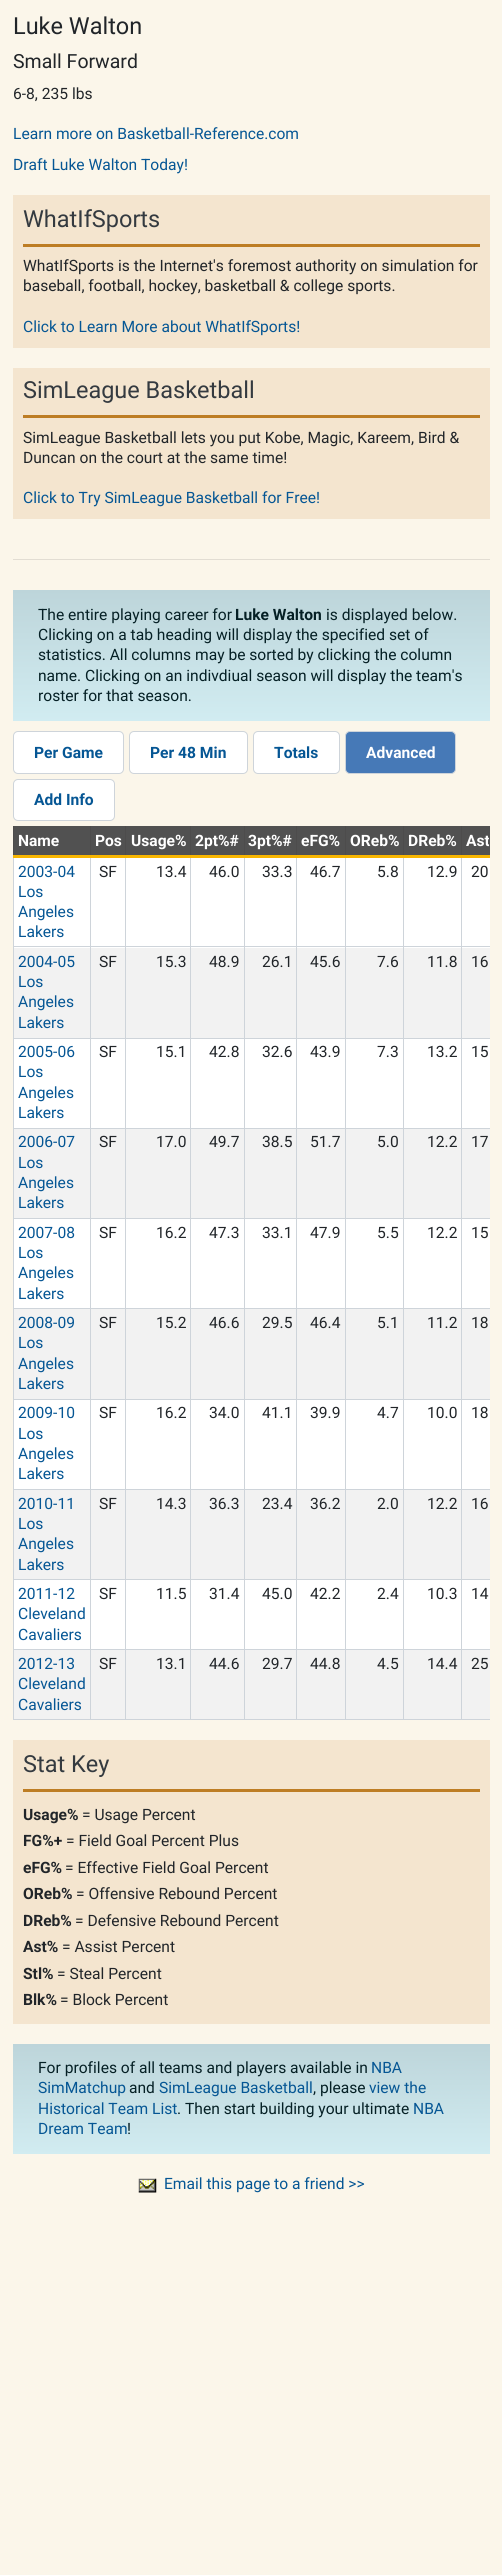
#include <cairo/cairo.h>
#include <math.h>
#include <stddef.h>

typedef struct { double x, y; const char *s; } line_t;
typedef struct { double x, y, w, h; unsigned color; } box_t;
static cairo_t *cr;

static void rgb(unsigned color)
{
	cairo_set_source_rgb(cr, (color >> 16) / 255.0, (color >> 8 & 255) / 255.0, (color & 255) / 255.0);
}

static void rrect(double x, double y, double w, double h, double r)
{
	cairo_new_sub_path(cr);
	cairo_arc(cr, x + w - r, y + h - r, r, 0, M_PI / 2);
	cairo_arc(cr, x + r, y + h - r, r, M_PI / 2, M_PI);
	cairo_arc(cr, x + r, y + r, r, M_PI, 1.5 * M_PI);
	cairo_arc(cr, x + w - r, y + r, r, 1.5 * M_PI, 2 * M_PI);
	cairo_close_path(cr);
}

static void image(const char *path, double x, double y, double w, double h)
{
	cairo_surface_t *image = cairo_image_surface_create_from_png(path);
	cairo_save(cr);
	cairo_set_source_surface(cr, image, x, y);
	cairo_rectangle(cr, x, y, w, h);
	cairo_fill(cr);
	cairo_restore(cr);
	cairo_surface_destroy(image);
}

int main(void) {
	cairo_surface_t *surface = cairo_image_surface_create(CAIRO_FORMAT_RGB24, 502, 2575);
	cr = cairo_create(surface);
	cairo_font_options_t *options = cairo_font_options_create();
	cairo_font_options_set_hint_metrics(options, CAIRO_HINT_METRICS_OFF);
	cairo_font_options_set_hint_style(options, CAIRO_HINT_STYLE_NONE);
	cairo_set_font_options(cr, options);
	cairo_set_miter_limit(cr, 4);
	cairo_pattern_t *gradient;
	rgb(0xfbf6ea);
	cairo_paint(cr);
	{
		static const box_t items[] = {
			{13, 195, 477, 153, 0xf4e5cf},
			{23, 244, 457, 3, 0xbd7d24},
			{13, 368, 477, 151, 0xf4e5cf},
			{23, 415, 457, 3, 0xbd7d24},
			{13, 559, 477, 1, 0xe2ddd3},
		};
		for (size_t i = 0; i < sizeof items / sizeof *items; i++) {
			rgb(items[i].color);
			cairo_rectangle(cr, items[i].x, items[i].y, items[i].w, items[i].h);
			cairo_fill(cr);
		}
	}
	gradient = cairo_pattern_create_linear(251, 590, 251, 721);
	cairo_pattern_add_color_stop_rgba(gradient, 0, 0.741, 0.835, 0.855, 1);
	cairo_pattern_add_color_stop_rgba(gradient, 1, 0.82, 0.925, 0.945, 1);
	cairo_set_source(cr, gradient);
	cairo_pattern_destroy(gradient);
	cairo_rectangle(cr, 13, 590, 477, 131);
	cairo_fill(cr);
	rgb(0xffffff);
	rrect(13.5, 731.5, 110, 42, 4.5);
	cairo_fill_preserve(cr);
	rgb(0xced4da);
	cairo_set_line_width(cr, 1);
	cairo_stroke(cr);
	rgb(0xffffff);
	rrect(129.5, 731.5, 118, 42, 4.5);
	cairo_fill_preserve(cr);
	rgb(0xced4da);
	cairo_stroke(cr);
	rgb(0xffffff);
	rrect(253.5, 731.5, 86, 42, 4.5);
	cairo_fill_preserve(cr);
	rgb(0xced4da);
	cairo_stroke(cr);
	rgb(0x4679b7);
	rrect(345.5, 731.5, 110, 42, 4.5);
	cairo_fill_preserve(cr);
	rgb(0xced4da);
	cairo_stroke(cr);
	rgb(0xffffff);
	rrect(13.5, 779.5, 101, 41, 4.5);
	cairo_fill_preserve(cr);
	rgb(0xced4da);
	cairo_stroke(cr);
	{
		static const box_t items[] = {
			{14, 858, 476, 791, 0xffffff},
			{14, 826, 76, 29, 0x515151},
			{461, 946, 29, 1, 0xced4da},
			{14, 948, 476, 90, 0xf2f2f2},
			{461, 1038, 29, 1, 0xced4da},
			{461, 1128, 29, 1, 0xced4da},
			{14, 1129, 476, 89, 0xf2f2f2},
			{461, 1218, 29, 1, 0xced4da},
			{461, 1308, 29, 1, 0xced4da},
			{14, 1309, 476, 90, 0xf2f2f2},
			{461, 1399, 29, 1, 0xced4da},
			{461, 1489, 29, 1, 0xced4da},
			{14, 1490, 476, 89, 0xf2f2f2},
			{461, 1579, 29, 1, 0xced4da},
			{461, 1649, 29, 1, 0xced4da},
			{14, 1650, 476, 69, 0xf2f2f2},
			{461, 1719, 29, 1, 0xced4da},
			{461, 1649, 1, 71, 0xced4da},
			{403, 1649, 60, 1, 0xced4da},
			{461, 1579, 1, 71, 0xced4da},
			{403, 1579, 60, 1, 0xced4da},
			{461, 1489, 1, 91, 0xced4da},
			{403, 1489, 60, 1, 0xced4da},
			{461, 1399, 1, 91, 0xced4da},
			{403, 1399, 60, 1, 0xced4da},
			{461, 1308, 1, 92, 0xced4da},
			{403, 1308, 60, 1, 0xced4da},
			{461, 1218, 1, 91, 0xced4da},
			{403, 1218, 60, 1, 0xced4da},
			{461, 1128, 1, 91, 0xced4da},
			{403, 1128, 60, 1, 0xced4da},
			{461, 1038, 1, 91, 0xced4da},
			{403, 1038, 60, 1, 0xced4da},
			{461, 946, 1, 93, 0xced4da},
			{403, 946, 60, 1, 0xced4da},
			{403, 1719, 60, 1, 0xced4da},
			{403, 1649, 1, 71, 0xced4da},
			{345, 1649, 59, 1, 0xced4da},
			{403, 1579, 1, 71, 0xced4da},
			{345, 1579, 59, 1, 0xced4da},
			{403, 1489, 1, 91, 0xced4da},
			{345, 1489, 59, 1, 0xced4da},
			{403, 1399, 1, 91, 0xced4da},
			{345, 1399, 59, 1, 0xced4da},
			{403, 1308, 1, 92, 0xced4da},
			{345, 1308, 59, 1, 0xced4da},
			{403, 1218, 1, 91, 0xced4da},
			{345, 1218, 59, 1, 0xced4da},
			{403, 1128, 1, 91, 0xced4da},
			{345, 1128, 59, 1, 0xced4da},
			{403, 1038, 1, 91, 0xced4da},
			{345, 1038, 59, 1, 0xced4da},
			{403, 946, 1, 93, 0xced4da},
			{345, 946, 59, 1, 0xced4da},
			{345, 1719, 59, 1, 0xced4da},
			{345, 1649, 1, 71, 0xced4da},
			{296, 1649, 50, 1, 0xced4da},
			{345, 1579, 1, 71, 0xced4da},
			{296, 1579, 50, 1, 0xced4da},
			{345, 1489, 1, 91, 0xced4da},
			{296, 1489, 50, 1, 0xced4da},
			{345, 1399, 1, 91, 0xced4da},
			{296, 1399, 50, 1, 0xced4da},
			{345, 1308, 1, 92, 0xced4da},
			{296, 1308, 50, 1, 0xced4da},
			{345, 1218, 1, 91, 0xced4da},
			{296, 1218, 50, 1, 0xced4da},
			{345, 1128, 1, 91, 0xced4da},
			{296, 1128, 50, 1, 0xced4da},
			{345, 1038, 1, 91, 0xced4da},
			{296, 1038, 50, 1, 0xced4da},
			{345, 946, 1, 93, 0xced4da},
			{296, 946, 50, 1, 0xced4da},
			{296, 1719, 50, 1, 0xced4da},
			{296, 1649, 1, 71, 0xced4da},
			{244, 1649, 54, 1, 0xced4da},
			{296, 1579, 1, 71, 0xced4da},
			{244, 1579, 54, 1, 0xced4da},
			{296, 1489, 1, 91, 0xced4da},
			{244, 1489, 54, 1, 0xced4da},
			{296, 1399, 1, 91, 0xced4da},
			{244, 1399, 54, 1, 0xced4da},
			{296, 1308, 1, 92, 0xced4da},
			{244, 1308, 54, 1, 0xced4da},
			{296, 1218, 1, 91, 0xced4da},
			{244, 1218, 54, 1, 0xced4da},
			{296, 1128, 1, 91, 0xced4da},
			{244, 1128, 54, 1, 0xced4da},
			{296, 1038, 1, 91, 0xced4da},
			{244, 1038, 54, 1, 0xced4da},
			{296, 946, 1, 93, 0xced4da},
			{244, 946, 54, 1, 0xced4da},
			{244, 1719, 54, 1, 0xced4da},
			{244, 1649, 1, 71, 0xced4da},
			{190, 1649, 55, 1, 0xced4da},
			{244, 1579, 1, 71, 0xced4da},
			{190, 1579, 55, 1, 0xced4da},
			{244, 1489, 1, 91, 0xced4da},
			{190, 1489, 55, 1, 0xced4da},
			{244, 1399, 1, 91, 0xced4da},
			{190, 1399, 55, 1, 0xced4da},
			{244, 1308, 1, 92, 0xced4da},
			{190, 1308, 55, 1, 0xced4da},
			{244, 1218, 1, 91, 0xced4da},
			{190, 1218, 55, 1, 0xced4da},
			{244, 1128, 1, 91, 0xced4da},
			{190, 1128, 55, 1, 0xced4da},
			{244, 1038, 1, 91, 0xced4da},
			{190, 1038, 55, 1, 0xced4da},
			{244, 946, 1, 93, 0xced4da},
			{190, 946, 55, 1, 0xced4da},
			{190, 1719, 55, 1, 0xced4da},
			{190, 1649, 1, 71, 0xced4da},
			{125, 1649, 66, 1, 0xced4da},
			{190, 1579, 1, 71, 0xced4da},
			{125, 1579, 66, 1, 0xced4da},
			{190, 1489, 1, 91, 0xced4da},
			{125, 1489, 66, 1, 0xced4da},
			{190, 1399, 1, 91, 0xced4da},
			{125, 1399, 66, 1, 0xced4da},
			{190, 1308, 1, 92, 0xced4da},
			{125, 1308, 66, 1, 0xced4da},
			{190, 1218, 1, 91, 0xced4da},
			{125, 1218, 66, 1, 0xced4da},
			{190, 1128, 1, 91, 0xced4da},
			{125, 1128, 66, 1, 0xced4da},
			{190, 1038, 1, 91, 0xced4da},
			{125, 1038, 66, 1, 0xced4da},
			{190, 946, 1, 93, 0xced4da},
			{125, 946, 66, 1, 0xced4da},
			{125, 1719, 66, 1, 0xced4da},
			{125, 1649, 1, 71, 0xced4da},
			{90, 1649, 36, 1, 0xced4da},
			{125, 1579, 1, 71, 0xced4da},
			{90, 1579, 36, 1, 0xced4da},
			{125, 1489, 1, 91, 0xced4da},
			{90, 1489, 36, 1, 0xced4da},
			{125, 1399, 1, 91, 0xced4da},
			{90, 1399, 36, 1, 0xced4da},
			{125, 1308, 1, 92, 0xced4da},
			{90, 1308, 36, 1, 0xced4da},
			{125, 1218, 1, 91, 0xced4da},
			{90, 1218, 36, 1, 0xced4da},
			{125, 1128, 1, 91, 0xced4da},
			{90, 1128, 36, 1, 0xced4da},
			{125, 1038, 1, 91, 0xced4da},
			{90, 1038, 36, 1, 0xced4da},
			{125, 946, 1, 93, 0xced4da},
			{90, 946, 36, 1, 0xced4da},
			{90, 1719, 36, 1, 0xced4da},
			{90, 1649, 1, 71, 0xced4da},
			{13, 1649, 78, 1, 0xced4da},
			{90, 1579, 1, 71, 0xced4da},
			{13, 1579, 78, 1, 0xced4da},
			{90, 1489, 1, 91, 0xced4da},
			{13, 1489, 78, 1, 0xced4da},
			{90, 1399, 1, 91, 0xced4da},
			{13, 1399, 78, 1, 0xced4da},
			{90, 1308, 1, 92, 0xced4da},
			{13, 1308, 78, 1, 0xced4da},
			{90, 1218, 1, 91, 0xced4da},
			{13, 1218, 78, 1, 0xced4da},
			{90, 1128, 1, 91, 0xced4da},
			{13, 1128, 78, 1, 0xced4da},
			{90, 1038, 1, 91, 0xced4da},
			{13, 1038, 78, 1, 0xced4da},
			{90, 946, 1, 93, 0xced4da},
			{13, 946, 78, 1, 0xced4da},
			{13, 1719, 78, 1, 0xced4da},
			{13, 1649, 1, 71, 0xced4da},
			{13, 1579, 1, 71, 0xced4da},
			{13, 1489, 1, 91, 0xced4da},
			{13, 1399, 1, 91, 0xced4da},
			{13, 1308, 1, 92, 0xced4da},
			{13, 1218, 1, 91, 0xced4da},
			{13, 1128, 1, 91, 0xced4da},
			{13, 1038, 1, 91, 0xced4da},
			{13, 856, 1, 183, 0xced4da},
			{13, 826, 1, 32, 0x4d4c4c},
			{91, 826, 34, 29, 0x515151},
			{90, 856, 1, 92, 0xced4da},
			{90, 826, 1, 32, 0x4d4c4c},
			{126, 826, 64, 29, 0x515151},
			{125, 856, 1, 92, 0xced4da},
			{125, 826, 1, 32, 0x4d4c4c},
			{191, 826, 53, 29, 0x515151},
			{190, 856, 1, 92, 0xced4da},
			{190, 826, 1, 32, 0x4d4c4c},
			{245, 826, 51, 29, 0x515151},
			{244, 856, 1, 92, 0xced4da},
			{244, 826, 1, 32, 0x4d4c4c},
			{297, 826, 48, 29, 0x515151},
			{296, 856, 1, 92, 0xced4da},
			{296, 826, 1, 32, 0x4d4c4c},
			{346, 826, 57, 29, 0x515151},
			{345, 856, 1, 92, 0xced4da},
			{345, 826, 1, 32, 0x4d4c4c},
			{404, 826, 57, 29, 0x515151},
			{403, 856, 1, 92, 0xced4da},
			{403, 826, 1, 32, 0x4d4c4c},
			{462, 826, 28, 29, 0x515151},
			{461, 856, 1, 92, 0xced4da},
			{461, 826, 1, 32, 0x4d4c4c},
			{13, 855, 477, 3, 0xf7b500},
			{13, 1740, 477, 284, 0xf4e5cf},
			{23, 1789, 457, 3, 0xbd7d24},
		};
		for (size_t i = 0; i < sizeof items / sizeof *items; i++) {
			rgb(items[i].color);
			cairo_rectangle(cr, items[i].x, items[i].y, items[i].w, items[i].h);
			cairo_fill(cr);
		}
	}
	gradient = cairo_pattern_create_linear(251, 2044, 251, 2154);
	cairo_pattern_add_color_stop_rgba(gradient, 0, 0.741, 0.835, 0.855, 1);
	cairo_pattern_add_color_stop_rgba(gradient, 1, 0.82, 0.925, 0.945, 1);
	cairo_set_source(cr, gradient);
	cairo_pattern_destroy(gradient);
	cairo_rectangle(cr, 13, 2044, 477, 110);
	cairo_fill(cr);
	image("img/1.png", 138, 2178, 19, 15);
	cairo_select_font_face(cr, "Roboto", CAIRO_FONT_SLANT_NORMAL, CAIRO_FONT_WEIGHT_NORMAL);
	cairo_set_font_size(cr, 23.5);
	rgb(0x212529);
	cairo_move_to(cr, 13, 34);
	cairo_show_text(cr, "Luke Walton");
	cairo_set_font_size(cr, 19.5);
	cairo_move_to(cr, 13, 68);
	cairo_show_text(cr, "Small Forward");
	cairo_set_font_size(cr, 15.6);
	cairo_move_to(cr, 13, 99);
	cairo_show_text(cr, "6-8, 235 lbs");
	rgb(0x055694);
	cairo_move_to(cr, 13, 139);
	cairo_show_text(cr, "Learn more on Basketball-Reference.com");
	cairo_move_to(cr, 13, 170);
	cairo_show_text(cr, "Draft Luke Walton Today!");
	cairo_set_font_size(cr, 23.5);
	rgb(0x343a40);
	cairo_move_to(cr, 23, 227);
	cairo_show_text(cr, "WhatIfSports");
	cairo_set_font_size(cr, 15.6);
	rgb(0x212529);
	cairo_move_to(cr, 23, 271);
	cairo_show_text(cr, "WhatIfSports is the Internet's foremost authority on simulation for");
	cairo_move_to(cr, 23, 291);
	cairo_show_text(cr, "baseball, football, hockey, basketball & college sports.");
	rgb(0x055694);
	cairo_move_to(cr, 23, 332);
	cairo_show_text(cr, "Click to Learn More about WhatIfSports!");
	cairo_set_font_size(cr, 23.5);
	rgb(0x343a40);
	cairo_move_to(cr, 23, 398);
	cairo_show_text(cr, "SimLeague Basketball");
	cairo_set_font_size(cr, 15.6);
	rgb(0x212529);
	cairo_move_to(cr, 23, 443);
	cairo_show_text(cr, "SimLeague Basketball lets you put Kobe, Magic, Kareem, Bird &");
	cairo_move_to(cr, 23, 463);
	cairo_show_text(cr, "Duncan on the court at the same time!");
	rgb(0x055694);
	cairo_move_to(cr, 23, 503);
	cairo_show_text(cr, "Click to Try SimLeague Basketball for Free!");
	rgb(0x052025);
	cairo_move_to(cr, 38, 620);
	cairo_show_text(cr, "The entire playing career for");
	cairo_select_font_face(cr, "Roboto", CAIRO_FONT_SLANT_NORMAL, CAIRO_FONT_WEIGHT_BOLD);
	cairo_move_to(cr, 235, 620);
	cairo_show_text(cr, "Luke Walton");
	cairo_select_font_face(cr, "Roboto", CAIRO_FONT_SLANT_NORMAL, CAIRO_FONT_WEIGHT_NORMAL);
	{
		static const line_t items[] = {
			{326, 620, "is displayed below."},
			{38, 640, "Clicking on a tab heading will display the specified set of"},
			{38, 660, "statistics. All columns may be sorted by clicking the column"},
			{38, 681, "name. Clicking on an indivdiual season will display the team's"},
			{38, 701, "roster for that season."},
		};
		for (size_t i = 0; i < sizeof items / sizeof *items; i++) {
			cairo_move_to(cr, items[i].x, items[i].y);
			cairo_show_text(cr, items[i].s);
		}
	}
	cairo_select_font_face(cr, "Roboto", CAIRO_FONT_SLANT_NORMAL, CAIRO_FONT_WEIGHT_BOLD);
	rgb(0x055694);
	{
		static const line_t items[] = {
			{34, 758, "Per Game"},
			{150, 758, "Per 48 Min"},
			{274, 758, "Totals"},
		};
		for (size_t i = 0; i < sizeof items / sizeof *items; i++) {
			cairo_move_to(cr, items[i].x, items[i].y);
			cairo_show_text(cr, items[i].s);
		}
	}
	rgb(0xffffff);
	cairo_move_to(cr, 366, 758);
	cairo_show_text(cr, "Advanced");
	rgb(0x055694);
	cairo_move_to(cr, 34, 805);
	cairo_show_text(cr, "Add Info");
	rgb(0xffffff);
	{
		static const line_t items[] = {
			{18, 846, "Name"},
			{95, 846, "Pos"},
			{131, 846, "Usage%"},
			{195, 846, "2pt%#"},
			{248, 846, "3pt%#"},
			{301, 846, "eFG%"},
			{350, 846, "OReb%"},
			{408, 846, "DReb%"},
			{466, 846, "Ast"},
		};
		for (size_t i = 0; i < sizeof items / sizeof *items; i++) {
			cairo_move_to(cr, items[i].x, items[i].y);
			cairo_show_text(cr, items[i].s);
		}
	}
	cairo_select_font_face(cr, "Roboto", CAIRO_FONT_SLANT_NORMAL, CAIRO_FONT_WEIGHT_NORMAL);
	rgb(0x055694);
	{
		static const line_t items[] = {
			{18, 877, "2003-04"},
			{18, 897, "Los"},
			{18, 917, "Angeles"},
			{18, 937, "Lakers"},
		};
		for (size_t i = 0; i < sizeof items / sizeof *items; i++) {
			cairo_move_to(cr, items[i].x, items[i].y);
			cairo_show_text(cr, items[i].s);
		}
	}
	rgb(0x212529);
	{
		static const line_t items[] = {
			{99, 877, "SF"},
			{156, 877, "13.4"},
			{209, 877, "46.0"},
			{262, 877, "33.3"},
			{310, 877, "46.7"},
			{377, 877, "5.8"},
			{427, 877, "12.9"},
			{471, 877, "20"},
		};
		for (size_t i = 0; i < sizeof items / sizeof *items; i++) {
			cairo_move_to(cr, items[i].x, items[i].y);
			cairo_show_text(cr, items[i].s);
		}
	}
	rgb(0x055694);
	{
		static const line_t items[] = {
			{18, 967, "2004-05"},
			{18, 987, "Los"},
			{18, 1007, "Angeles"},
			{18, 1028, "Lakers"},
		};
		for (size_t i = 0; i < sizeof items / sizeof *items; i++) {
			cairo_move_to(cr, items[i].x, items[i].y);
			cairo_show_text(cr, items[i].s);
		}
	}
	rgb(0x212529);
	{
		static const line_t items[] = {
			{99, 967, "SF"},
			{156, 967, "15.3"},
			{209, 967, "48.9"},
			{262, 967, "26.1"},
			{310, 967, "45.6"},
			{377, 967, "7.6"},
			{427, 967, "11.8"},
			{471, 967, "16"},
		};
		for (size_t i = 0; i < sizeof items / sizeof *items; i++) {
			cairo_move_to(cr, items[i].x, items[i].y);
			cairo_show_text(cr, items[i].s);
		}
	}
	rgb(0x055694);
	{
		static const line_t items[] = {
			{18, 1057, "2005-06"},
			{18, 1077, "Los"},
			{18, 1098, "Angeles"},
			{18, 1118, "Lakers"},
		};
		for (size_t i = 0; i < sizeof items / sizeof *items; i++) {
			cairo_move_to(cr, items[i].x, items[i].y);
			cairo_show_text(cr, items[i].s);
		}
	}
	rgb(0x212529);
	{
		static const line_t items[] = {
			{99, 1057, "SF"},
			{156, 1057, "15.1"},
			{209, 1057, "42.8"},
			{262, 1057, "32.6"},
			{310, 1057, "43.9"},
			{377, 1057, "7.3"},
			{427, 1057, "13.2"},
			{471, 1057, "15"},
		};
		for (size_t i = 0; i < sizeof items / sizeof *items; i++) {
			cairo_move_to(cr, items[i].x, items[i].y);
			cairo_show_text(cr, items[i].s);
		}
	}
	rgb(0x055694);
	{
		static const line_t items[] = {
			{18, 1147, "2006-07"},
			{18, 1168, "Los"},
			{18, 1188, "Angeles"},
			{18, 1208, "Lakers"},
		};
		for (size_t i = 0; i < sizeof items / sizeof *items; i++) {
			cairo_move_to(cr, items[i].x, items[i].y);
			cairo_show_text(cr, items[i].s);
		}
	}
	rgb(0x212529);
	{
		static const line_t items[] = {
			{99, 1147, "SF"},
			{156, 1147, "17.0"},
			{209, 1147, "49.7"},
			{262, 1147, "38.5"},
			{310, 1147, "51.7"},
			{377, 1147, "5.0"},
			{427, 1147, "12.2"},
			{471, 1147, "17"},
		};
		for (size_t i = 0; i < sizeof items / sizeof *items; i++) {
			cairo_move_to(cr, items[i].x, items[i].y);
			cairo_show_text(cr, items[i].s);
		}
	}
	rgb(0x055694);
	{
		static const line_t items[] = {
			{18, 1238, "2007-08"},
			{18, 1258, "Los"},
			{18, 1278, "Angeles"},
			{18, 1299, "Lakers"},
		};
		for (size_t i = 0; i < sizeof items / sizeof *items; i++) {
			cairo_move_to(cr, items[i].x, items[i].y);
			cairo_show_text(cr, items[i].s);
		}
	}
	rgb(0x212529);
	{
		static const line_t items[] = {
			{99, 1238, "SF"},
			{156, 1238, "16.2"},
			{209, 1238, "47.3"},
			{262, 1238, "33.1"},
			{310, 1238, "47.9"},
			{377, 1238, "5.5"},
			{427, 1238, "12.2"},
			{471, 1238, "15"},
		};
		for (size_t i = 0; i < sizeof items / sizeof *items; i++) {
			cairo_move_to(cr, items[i].x, items[i].y);
			cairo_show_text(cr, items[i].s);
		}
	}
	rgb(0x055694);
	{
		static const line_t items[] = {
			{18, 1328, "2008-09"},
			{18, 1348, "Los"},
			{18, 1369, "Angeles"},
			{18, 1389, "Lakers"},
		};
		for (size_t i = 0; i < sizeof items / sizeof *items; i++) {
			cairo_move_to(cr, items[i].x, items[i].y);
			cairo_show_text(cr, items[i].s);
		}
	}
	rgb(0x212529);
	{
		static const line_t items[] = {
			{99, 1328, "SF"},
			{156, 1328, "15.2"},
			{209, 1328, "46.6"},
			{262, 1328, "29.5"},
			{310, 1328, "46.4"},
			{377, 1328, "5.1"},
			{427, 1328, "11.2"},
			{471, 1328, "18"},
		};
		for (size_t i = 0; i < sizeof items / sizeof *items; i++) {
			cairo_move_to(cr, items[i].x, items[i].y);
			cairo_show_text(cr, items[i].s);
		}
	}
	rgb(0x055694);
	{
		static const line_t items[] = {
			{18, 1418, "2009-10"},
			{18, 1439, "Los"},
			{18, 1459, "Angeles"},
			{18, 1479, "Lakers"},
		};
		for (size_t i = 0; i < sizeof items / sizeof *items; i++) {
			cairo_move_to(cr, items[i].x, items[i].y);
			cairo_show_text(cr, items[i].s);
		}
	}
	rgb(0x212529);
	{
		static const line_t items[] = {
			{99, 1418, "SF"},
			{156, 1418, "16.2"},
			{209, 1418, "34.0"},
			{262, 1418, "41.1"},
			{310, 1418, "39.9"},
			{377, 1418, "4.7"},
			{427, 1418, "10.0"},
			{471, 1418, "18"},
		};
		for (size_t i = 0; i < sizeof items / sizeof *items; i++) {
			cairo_move_to(cr, items[i].x, items[i].y);
			cairo_show_text(cr, items[i].s);
		}
	}
	rgb(0x055694);
	{
		static const line_t items[] = {
			{18, 1509, "2010-11"},
			{18, 1529, "Los"},
			{18, 1549, "Angeles"},
			{18, 1570, "Lakers"},
		};
		for (size_t i = 0; i < sizeof items / sizeof *items; i++) {
			cairo_move_to(cr, items[i].x, items[i].y);
			cairo_show_text(cr, items[i].s);
		}
	}
	rgb(0x212529);
	{
		static const line_t items[] = {
			{99, 1509, "SF"},
			{156, 1509, "14.3"},
			{209, 1509, "36.3"},
			{262, 1509, "23.4"},
			{310, 1509, "36.2"},
			{377, 1509, "2.0"},
			{427, 1509, "12.2"},
			{471, 1509, "16"},
		};
		for (size_t i = 0; i < sizeof items / sizeof *items; i++) {
			cairo_move_to(cr, items[i].x, items[i].y);
			cairo_show_text(cr, items[i].s);
		}
	}
	rgb(0x055694);
	{
		static const line_t items[] = {
			{18, 1599, "2011-12"},
			{18, 1619, "Cleveland"},
			{18, 1640, "Cavaliers"},
		};
		for (size_t i = 0; i < sizeof items / sizeof *items; i++) {
			cairo_move_to(cr, items[i].x, items[i].y);
			cairo_show_text(cr, items[i].s);
		}
	}
	rgb(0x212529);
	{
		static const line_t items[] = {
			{99, 1599, "SF"},
			{156, 1599, "11.5"},
			{209, 1599, "31.4"},
			{262, 1599, "45.0"},
			{310, 1599, "42.2"},
			{377, 1599, "2.4"},
			{427, 1599, "10.3"},
			{471, 1599, "14"},
		};
		for (size_t i = 0; i < sizeof items / sizeof *items; i++) {
			cairo_move_to(cr, items[i].x, items[i].y);
			cairo_show_text(cr, items[i].s);
		}
	}
	rgb(0x055694);
	{
		static const line_t items[] = {
			{18, 1669, "2012-13"},
			{18, 1689, "Cleveland"},
			{18, 1710, "Cavaliers"},
		};
		for (size_t i = 0; i < sizeof items / sizeof *items; i++) {
			cairo_move_to(cr, items[i].x, items[i].y);
			cairo_show_text(cr, items[i].s);
		}
	}
	rgb(0x212529);
	{
		static const line_t items[] = {
			{99, 1669, "SF"},
			{156, 1669, "13.1"},
			{209, 1669, "44.6"},
			{262, 1669, "29.7"},
			{310, 1669, "44.8"},
			{377, 1669, "4.5"},
			{427, 1669, "14.4"},
			{471, 1669, "25"},
		};
		for (size_t i = 0; i < sizeof items / sizeof *items; i++) {
			cairo_move_to(cr, items[i].x, items[i].y);
			cairo_show_text(cr, items[i].s);
		}
	}
	cairo_set_font_size(cr, 23.5);
	rgb(0x343a40);
	cairo_move_to(cr, 23, 1772);
	cairo_show_text(cr, "Stat Key");
	cairo_select_font_face(cr, "Roboto", CAIRO_FONT_SLANT_NORMAL, CAIRO_FONT_WEIGHT_BOLD);
	cairo_set_font_size(cr, 15.6);
	rgb(0x212529);
	cairo_move_to(cr, 23, 1820);
	cairo_show_text(cr, "Usage%");
	cairo_select_font_face(cr, "Roboto", CAIRO_FONT_SLANT_NORMAL, CAIRO_FONT_WEIGHT_NORMAL);
	cairo_move_to(cr, 82, 1820);
	cairo_show_text(cr, "= Usage Percent");
	cairo_select_font_face(cr, "Roboto", CAIRO_FONT_SLANT_NORMAL, CAIRO_FONT_WEIGHT_BOLD);
	cairo_move_to(cr, 23, 1846);
	cairo_show_text(cr, "FG%+");
	cairo_select_font_face(cr, "Roboto", CAIRO_FONT_SLANT_NORMAL, CAIRO_FONT_WEIGHT_NORMAL);
	cairo_move_to(cr, 66, 1846);
	cairo_show_text(cr, "= Field Goal Percent Plus");
	cairo_select_font_face(cr, "Roboto", CAIRO_FONT_SLANT_NORMAL, CAIRO_FONT_WEIGHT_BOLD);
	cairo_move_to(cr, 23, 1873);
	cairo_show_text(cr, "eFG%");
	cairo_select_font_face(cr, "Roboto", CAIRO_FONT_SLANT_NORMAL, CAIRO_FONT_WEIGHT_NORMAL);
	cairo_move_to(cr, 65, 1873);
	cairo_show_text(cr, "= Effective Field Goal Percent");
	cairo_select_font_face(cr, "Roboto", CAIRO_FONT_SLANT_NORMAL, CAIRO_FONT_WEIGHT_BOLD);
	cairo_move_to(cr, 23, 1899);
	cairo_show_text(cr, "OReb%");
	cairo_select_font_face(cr, "Roboto", CAIRO_FONT_SLANT_NORMAL, CAIRO_FONT_WEIGHT_NORMAL);
	cairo_move_to(cr, 76, 1899);
	cairo_show_text(cr, "= Offensive Rebound Percent");
	cairo_select_font_face(cr, "Roboto", CAIRO_FONT_SLANT_NORMAL, CAIRO_FONT_WEIGHT_BOLD);
	cairo_move_to(cr, 23, 1926);
	cairo_show_text(cr, "DReb%");
	cairo_select_font_face(cr, "Roboto", CAIRO_FONT_SLANT_NORMAL, CAIRO_FONT_WEIGHT_NORMAL);
	cairo_move_to(cr, 75, 1926);
	cairo_show_text(cr, "= Defensive Rebound Percent");
	cairo_select_font_face(cr, "Roboto", CAIRO_FONT_SLANT_NORMAL, CAIRO_FONT_WEIGHT_BOLD);
	cairo_move_to(cr, 23, 1952);
	cairo_show_text(cr, "Ast%");
	cairo_select_font_face(cr, "Roboto", CAIRO_FONT_SLANT_NORMAL, CAIRO_FONT_WEIGHT_NORMAL);
	cairo_move_to(cr, 62, 1952);
	cairo_show_text(cr, "= Assist Percent");
	cairo_select_font_face(cr, "Roboto", CAIRO_FONT_SLANT_NORMAL, CAIRO_FONT_WEIGHT_BOLD);
	cairo_move_to(cr, 23, 1979);
	cairo_show_text(cr, "Stl%");
	cairo_select_font_face(cr, "Roboto", CAIRO_FONT_SLANT_NORMAL, CAIRO_FONT_WEIGHT_NORMAL);
	cairo_move_to(cr, 57, 1979);
	cairo_show_text(cr, "= Steal Percent");
	cairo_select_font_face(cr, "Roboto", CAIRO_FONT_SLANT_NORMAL, CAIRO_FONT_WEIGHT_BOLD);
	cairo_move_to(cr, 23, 2005);
	cairo_show_text(cr, "Blk%");
	cairo_select_font_face(cr, "Roboto", CAIRO_FONT_SLANT_NORMAL, CAIRO_FONT_WEIGHT_NORMAL);
	cairo_move_to(cr, 60, 2005);
	cairo_show_text(cr, "= Block Percent");
	rgb(0x052025);
	cairo_move_to(cr, 38, 2073);
	cairo_show_text(cr, "For profiles of all teams and players available in");
	rgb(0x055694);
	cairo_move_to(cr, 371, 2073);
	cairo_show_text(cr, "NBA");
	cairo_move_to(cr, 38, 2093);
	cairo_show_text(cr, "SimMatchup");
	rgb(0x052025);
	cairo_move_to(cr, 129, 2093);
	cairo_show_text(cr, "and");
	rgb(0x055694);
	cairo_move_to(cr, 159, 2093);
	cairo_show_text(cr, "SimLeague Basketball");
	rgb(0x052025);
	cairo_move_to(cr, 313, 2093);
	cairo_show_text(cr, ", please");
	rgb(0x055694);
	cairo_move_to(cr, 369, 2093);
	cairo_show_text(cr, "view the");
	cairo_move_to(cr, 38, 2114);
	cairo_show_text(cr, "Historical Team List");
	rgb(0x052025);
	cairo_move_to(cr, 177, 2114);
	cairo_show_text(cr, ". Then start building your ultimate");
	rgb(0x055694);
	cairo_move_to(cr, 413, 2114);
	cairo_show_text(cr, "NBA");
	cairo_move_to(cr, 38, 2134);
	cairo_show_text(cr, "Dream Team");
	rgb(0x052025);
	cairo_move_to(cr, 127, 2134);
	cairo_show_text(cr, "!");
	rgb(0x055694);
	cairo_move_to(cr, 164, 2189);
	cairo_show_text(cr, "Email this page to a friend >>");
	cairo_surface_write_to_png(surface, "page.png");
	cairo_font_options_destroy(options);
	cairo_destroy(cr);
	cairo_surface_destroy(surface);
	return 0;
}
